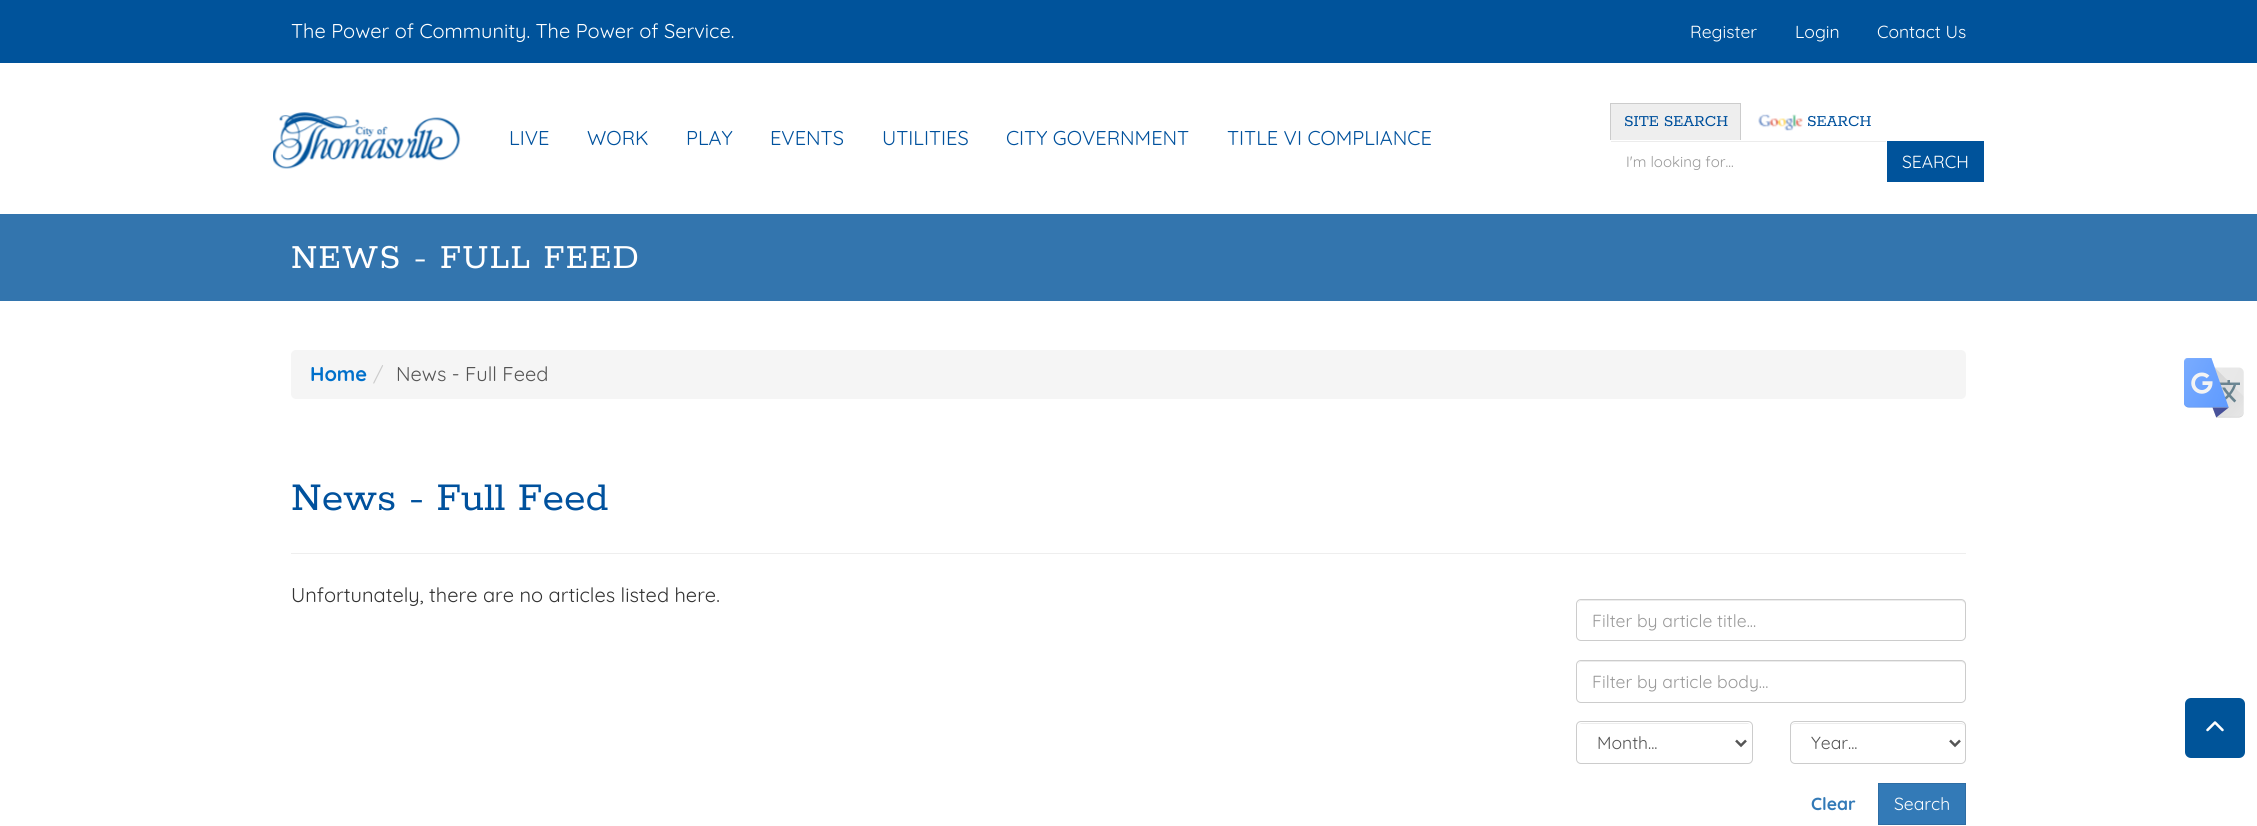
#include <cairo/cairo.h>
#include <math.h>
#include <stddef.h>

typedef struct { double x, y; const char *s; } line_t;
typedef struct { double x, y, w, h; unsigned color; } box_t;
static cairo_t *cr;

static void rgb(unsigned color)
{
	cairo_set_source_rgb(cr, (color >> 16) / 255.0, (color >> 8 & 255) / 255.0, (color & 255) / 255.0);
}

static void tracked(double x, double y, const char *s, double letter, double word)
{
	cairo_move_to(cr, x, y);
	while (*s) {
		char ch[5] = {0};
		int n = 0;
		do ch[n++] = *s++; while ((*s & 0xC0) == 0x80);
		cairo_show_text(cr, ch);
		cairo_rel_move_to(cr, letter + word * (*ch == ' '), 0);
	}
}

static void rrect(double x, double y, double w, double h, double r)
{
	cairo_new_sub_path(cr);
	cairo_arc(cr, x + w - r, y + h - r, r, 0, M_PI / 2);
	cairo_arc(cr, x + r, y + h - r, r, M_PI / 2, M_PI);
	cairo_arc(cr, x + r, y + r, r, M_PI, 1.5 * M_PI);
	cairo_arc(cr, x + w - r, y + r, r, 1.5 * M_PI, 2 * M_PI);
	cairo_close_path(cr);
}

static void image(const char *path, double x, double y, double w, double h)
{
	cairo_surface_t *image = cairo_image_surface_create_from_png(path);
	cairo_save(cr);
	cairo_set_source_surface(cr, image, x, y);
	cairo_rectangle(cr, x, y, w, h);
	cairo_fill(cr);
	cairo_restore(cr);
	cairo_surface_destroy(image);
}

int main(void) {
	cairo_surface_t *surface = cairo_image_surface_create(CAIRO_FORMAT_RGB24, 2257, 826);
	cr = cairo_create(surface);
	cairo_font_options_t *options = cairo_font_options_create();
	cairo_font_options_set_hint_metrics(options, CAIRO_HINT_METRICS_OFF);
	cairo_font_options_set_hint_style(options, CAIRO_HINT_STYLE_NONE);
	cairo_set_font_options(cr, options);
	cairo_set_miter_limit(cr, 4);
	rgb(0xffffff);
	cairo_paint(cr);
	rgb(0x00539b);
	cairo_rectangle(cr, 0, 0, 2257, 63);
	cairo_fill(cr);
	image("img/1.png", 273, 112, 188, 57);
	{
		static const box_t items[] = {
			{1611, 104, 129, 36, 0xeeeeee},
			{1610, 103, 131, 1, 0xcccccc},
			{1740, 103, 1, 37, 0xcccccc},
			{1610, 103, 1, 37, 0xcccccc},
		};
		for (size_t i = 0; i < sizeof items / sizeof *items; i++) {
			rgb(items[i].color);
			cairo_rectangle(cr, items[i].x, items[i].y, items[i].w, items[i].h);
			cairo_fill(cr);
		}
	}
	image("img/2.png", 1758, 114, 45, 17);
	{
		static const box_t items[] = {
			{1611, 141, 275, 1, 0xececec},
			{1887, 141, 97, 41, 0x00539b},
			{0, 214, 2257, 87, 0x3375ae},
		};
		for (size_t i = 0; i < sizeof items / sizeof *items; i++) {
			rgb(items[i].color);
			cairo_rectangle(cr, items[i].x, items[i].y, items[i].w, items[i].h);
			cairo_fill(cr);
		}
	}
	rgb(0xf5f5f5);
	rrect(291, 350, 1675, 49, 5);
	cairo_fill(cr);
	rgb(0xeeeeee);
	cairo_rectangle(cr, 291, 553, 1675, 1);
	cairo_fill(cr);
	rgb(0xececec);
	cairo_new_path(cr);
	cairo_move_to(cr, 1581, 601);
	cairo_line_to(cr, 1961, 601);
	cairo_curve_to(cr, 1963, 601, 1965, 603, 1965, 605);
	cairo_curve_to(cr, 1965, 602, 1964, 600, 1961, 600);
	cairo_line_to(cr, 1582, 600);
	cairo_curve_to(cr, 1579, 600, 1578, 602, 1578, 605);
	cairo_curve_to(cr, 1578, 603, 1579, 601, 1581, 601);
	cairo_close_path(cr);
	cairo_fill(cr);
	rrect(1576.5, 599.5, 389, 41, 4.5);
	rgb(0xcccccc);
	cairo_set_line_width(cr, 1);
	cairo_stroke(cr);
	rgb(0xececec);
	cairo_new_path(cr);
	cairo_move_to(cr, 1581, 662);
	cairo_line_to(cr, 1961, 662);
	cairo_curve_to(cr, 1963, 662, 1965, 664, 1965, 666);
	cairo_curve_to(cr, 1965, 663, 1964, 661, 1961, 661);
	cairo_line_to(cr, 1582, 661);
	cairo_curve_to(cr, 1579, 661, 1578, 663, 1578, 666);
	cairo_curve_to(cr, 1578, 664, 1579, 662, 1581, 662);
	cairo_close_path(cr);
	cairo_fill(cr);
	rrect(1576.5, 660.5, 389, 42, 4.5);
	rgb(0xcccccc);
	cairo_stroke(cr);
	rgb(0xececec);
	cairo_new_path(cr);
	cairo_move_to(cr, 1581, 724);
	cairo_line_to(cr, 1748, 724);
	cairo_curve_to(cr, 1750, 724, 1751, 725, 1751, 728);
	cairo_line_to(cr, 1751, 727);
	cairo_curve_to(cr, 1751, 725, 1749, 723, 1747, 723);
	cairo_line_to(cr, 1582, 723);
	cairo_curve_to(cr, 1580, 723, 1578, 725, 1578, 727);
	cairo_line_to(cr, 1578, 728);
	cairo_curve_to(cr, 1578, 725, 1579, 724, 1581, 724);
	cairo_close_path(cr);
	cairo_fill(cr);
	rrect(1576.5, 721.5, 176, 42, 4.5);
	rgb(0xcccccc);
	cairo_stroke(cr);
	cairo_new_path(cr);
	cairo_move_to(cr, 1736, 740.5);
	cairo_line_to(cr, 1741, 745.5);
	cairo_line_to(cr, 1746, 740.5);
	rgb(0x555555);
	cairo_set_line_width(cr, 2.5);
	cairo_stroke(cr);
	rgb(0xececec);
	cairo_new_path(cr);
	cairo_move_to(cr, 1795, 724);
	cairo_line_to(cr, 1961, 724);
	cairo_curve_to(cr, 1963, 724, 1965, 725, 1965, 728);
	cairo_line_to(cr, 1965, 727);
	cairo_curve_to(cr, 1965, 725, 1963, 723, 1961, 723);
	cairo_line_to(cr, 1795, 723);
	cairo_curve_to(cr, 1793, 723, 1791, 725, 1791, 727);
	cairo_line_to(cr, 1791, 728);
	cairo_curve_to(cr, 1791, 725, 1793, 724, 1795, 724);
	cairo_close_path(cr);
	cairo_fill(cr);
	rrect(1790.5, 721.5, 175, 42, 4.5);
	rgb(0xcccccc);
	cairo_set_line_width(cr, 1);
	cairo_stroke(cr);
	cairo_new_path(cr);
	cairo_move_to(cr, 1950, 740.5);
	cairo_line_to(cr, 1955, 745.5);
	cairo_line_to(cr, 1960, 740.5);
	rgb(0x555555);
	cairo_set_line_width(cr, 2.5);
	cairo_stroke(cr);
	rgb(0x337ab7);
	cairo_rectangle(cr, 1878.5, 783.5, 87, 41);
	cairo_fill_preserve(cr);
	rgb(0x2e6da4);
	cairo_set_line_width(cr, 1);
	cairo_stroke(cr);
	rgb(0x005499);
	rrect(2185, 698, 60, 60, 6);
	cairo_fill(cr);
	image("img/3.png", 2206, 721, 18, 11);
	image("img/4.png", 2184, 358, 60, 60);
	cairo_select_font_face(cr, "Quicksand", CAIRO_FONT_SLANT_NORMAL, CAIRO_FONT_WEIGHT_NORMAL);
	cairo_set_font_size(cr, 20);
	rgb(0xffffff);
	cairo_move_to(cr, 291, 38);
	cairo_show_text(cr, "The Power of Community. The Power of Service.");
	cairo_set_font_size(cr, 17.5);
	{
		static const line_t items[] = {
			{1690, 38, "Register"},
			{1795, 38, "Login"},
			{1877, 38, "Contact Us"},
		};
		for (size_t i = 0; i < sizeof items / sizeof *items; i++) {
			cairo_move_to(cr, items[i].x, items[i].y);
			cairo_show_text(cr, items[i].s);
		}
	}
	cairo_set_font_size(cr, 20);
	rgb(0x00519d);
	{
		static const line_t items[] = {
			{509, 145, "LIVE"},
			{587, 145, "WORK"},
			{686, 145, "PLAY"},
			{770, 145, "EVENTS"},
			{882, 145, "UTILITIES"},
			{1006, 145, "CITY GOVERNMENT"},
			{1227, 145, "TITLE VI COMPLIANCE"},
		};
		for (size_t i = 0; i < sizeof items / sizeof *items; i++) {
			cairo_move_to(cr, items[i].x, items[i].y);
			cairo_show_text(cr, items[i].s);
		}
	}
	cairo_select_font_face(cr, "Rokkitt", CAIRO_FONT_SLANT_NORMAL, CAIRO_FONT_WEIGHT_NORMAL);
	cairo_set_font_size(cr, 17);
	cairo_move_to(cr, 1624, 126);
	cairo_show_text(cr, "SITE SEARCH");
	cairo_move_to(cr, 1807, 126);
	cairo_show_text(cr, "SEARCH");
	cairo_select_font_face(cr, "Quicksand", CAIRO_FONT_SLANT_NORMAL, CAIRO_FONT_WEIGHT_NORMAL);
	cairo_set_font_size(cr, 15);
	rgb(0x999999);
	cairo_move_to(cr, 1626, 167);
	cairo_show_text(cr, "I'm looking for...");
	cairo_set_font_size(cr, 17.5);
	rgb(0xffffff);
	cairo_move_to(cr, 1902, 168);
	cairo_show_text(cr, "SEARCH");
	cairo_select_font_face(cr, "Rokkitt", CAIRO_FONT_SLANT_NORMAL, CAIRO_FONT_WEIGHT_NORMAL);
	cairo_set_font_size(cr, 37.5);
	tracked(291, 268, "NEWS - FULL FEED", 1.25, 0);
	cairo_select_font_face(cr, "Quicksand", CAIRO_FONT_SLANT_NORMAL, CAIRO_FONT_WEIGHT_BOLD);
	cairo_set_font_size(cr, 20);
	rgb(0x0070cb);
	cairo_move_to(cr, 310, 381);
	cairo_show_text(cr, "Home");
	cairo_select_font_face(cr, "Quicksand", CAIRO_FONT_SLANT_NORMAL, CAIRO_FONT_WEIGHT_NORMAL);
	rgb(0xcccccc);
	cairo_move_to(cr, 373, 381);
	cairo_show_text(cr, "/");
	rgb(0x555555);
	cairo_move_to(cr, 396, 381);
	cairo_show_text(cr, "News - Full Feed");
	cairo_select_font_face(cr, "Rokkitt", CAIRO_FONT_SLANT_NORMAL, CAIRO_FONT_WEIGHT_NORMAL);
	cairo_set_font_size(cr, 43.75);
	rgb(0x00519d);
	cairo_move_to(cr, 291, 510);
	cairo_show_text(cr, "News - Full Feed");
	cairo_select_font_face(cr, "Quicksand", CAIRO_FONT_SLANT_NORMAL, CAIRO_FONT_WEIGHT_NORMAL);
	cairo_set_font_size(cr, 20);
	rgb(0x333333);
	cairo_move_to(cr, 291, 602);
	cairo_show_text(cr, "Unfortunately, there are no articles listed here.");
	cairo_set_font_size(cr, 17.5);
	rgb(0x999999);
	cairo_move_to(cr, 1592, 627);
	cairo_show_text(cr, "Filter by article title...");
	cairo_move_to(cr, 1592, 688);
	cairo_show_text(cr, "Filter by article body...");
	rgb(0x555555);
	cairo_move_to(cr, 1597, 749);
	cairo_show_text(cr, "Month...");
	cairo_move_to(cr, 1811, 749);
	cairo_show_text(cr, "Year...");
	cairo_select_font_face(cr, "Quicksand", CAIRO_FONT_SLANT_NORMAL, CAIRO_FONT_WEIGHT_BOLD);
	rgb(0x337ab7);
	cairo_move_to(cr, 1811, 810);
	cairo_show_text(cr, "Clear");
	cairo_select_font_face(cr, "Quicksand", CAIRO_FONT_SLANT_NORMAL, CAIRO_FONT_WEIGHT_NORMAL);
	rgb(0xffffff);
	cairo_move_to(cr, 1894, 810);
	cairo_show_text(cr, "Search");
	cairo_surface_write_to_png(surface, "page.png");
	cairo_font_options_destroy(options);
	cairo_destroy(cr);
	cairo_surface_destroy(surface);
	return 0;
}
